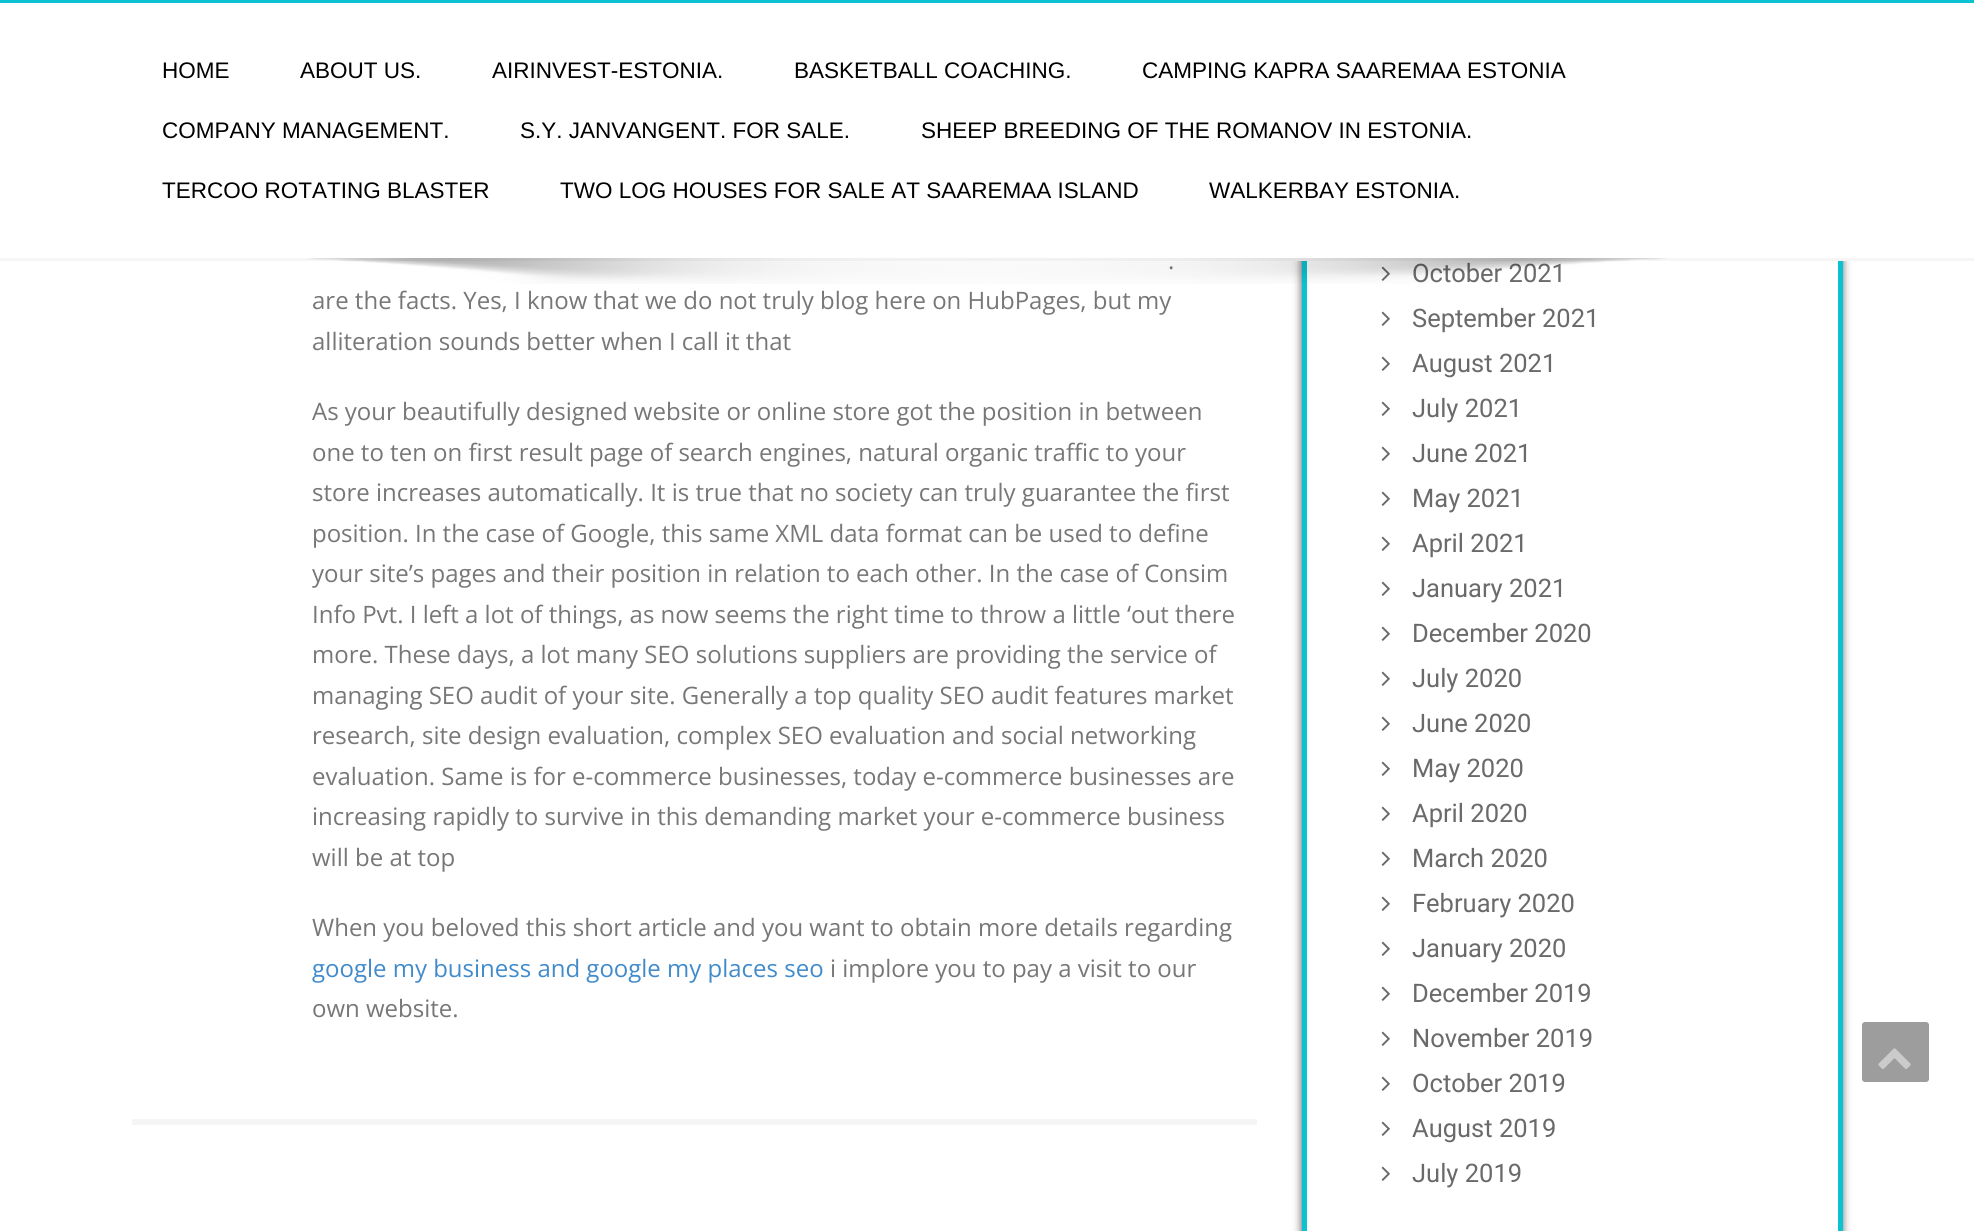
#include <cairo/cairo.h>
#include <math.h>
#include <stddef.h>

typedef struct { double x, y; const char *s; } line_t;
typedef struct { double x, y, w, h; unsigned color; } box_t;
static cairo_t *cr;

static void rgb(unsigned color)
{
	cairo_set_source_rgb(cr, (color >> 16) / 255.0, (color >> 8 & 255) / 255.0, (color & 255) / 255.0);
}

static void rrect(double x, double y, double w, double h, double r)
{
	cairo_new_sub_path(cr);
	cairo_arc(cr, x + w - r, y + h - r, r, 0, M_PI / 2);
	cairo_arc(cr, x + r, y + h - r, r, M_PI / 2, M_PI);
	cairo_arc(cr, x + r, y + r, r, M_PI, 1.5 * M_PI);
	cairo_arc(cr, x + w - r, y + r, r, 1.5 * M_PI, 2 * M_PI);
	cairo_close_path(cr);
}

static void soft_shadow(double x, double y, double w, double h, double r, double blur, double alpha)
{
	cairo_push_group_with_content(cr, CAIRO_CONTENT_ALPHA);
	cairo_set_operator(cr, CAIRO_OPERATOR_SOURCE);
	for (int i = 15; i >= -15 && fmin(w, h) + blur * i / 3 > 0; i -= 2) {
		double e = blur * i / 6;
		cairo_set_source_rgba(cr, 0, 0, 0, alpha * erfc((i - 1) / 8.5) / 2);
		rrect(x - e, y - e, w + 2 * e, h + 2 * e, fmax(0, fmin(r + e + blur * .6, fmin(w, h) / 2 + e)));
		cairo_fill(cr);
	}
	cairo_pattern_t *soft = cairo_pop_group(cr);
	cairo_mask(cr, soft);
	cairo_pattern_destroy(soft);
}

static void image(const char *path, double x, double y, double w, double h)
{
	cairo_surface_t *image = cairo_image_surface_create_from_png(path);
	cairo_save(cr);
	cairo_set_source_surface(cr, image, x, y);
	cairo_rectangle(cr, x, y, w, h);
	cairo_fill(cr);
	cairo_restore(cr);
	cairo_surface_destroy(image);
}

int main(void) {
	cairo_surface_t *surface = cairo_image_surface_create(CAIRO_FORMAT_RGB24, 1974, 1231);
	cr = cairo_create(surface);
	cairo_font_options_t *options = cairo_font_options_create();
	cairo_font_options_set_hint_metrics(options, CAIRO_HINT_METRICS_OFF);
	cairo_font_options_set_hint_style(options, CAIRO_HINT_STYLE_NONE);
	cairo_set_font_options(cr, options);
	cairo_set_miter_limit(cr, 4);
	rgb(0xffffff);
	cairo_paint(cr);
	cairo_save(cr);
	cairo_set_fill_rule(cr, CAIRO_FILL_RULE_EVEN_ODD);
	cairo_new_path(cr);
	cairo_move_to(cr, 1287, 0);
	cairo_line_to(cr, 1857, 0);
	cairo_line_to(cr, 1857, 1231);
	cairo_line_to(cr, 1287, 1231);
	cairo_close_path(cr);
	cairo_move_to(cr, 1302, -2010);
	cairo_line_to(cr, 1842, -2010);
	cairo_line_to(cr, 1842, 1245);
	cairo_line_to(cr, 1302, 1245);
	cairo_close_path(cr);
	cairo_clip(cr);
	rgb(0x000000);
	soft_shadow(1302, -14, 540, 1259, 0, 4.5, 0.7);
	cairo_restore(cr);
	{
		static const box_t items[] = {
			{1292, 3, 560, 255, 0xffffff},
			{0, 0, 1974, 3, 0x0ac2d2},
			{0, 258, 1974, 3, 0xf7f5f5},
			{132, 1119, 1125, 6, 0xf5f5f5},
			{1838, 261, 5, 970, 0x0ac2d2},
			{1302, 261, 5, 970, 0x0ac2d2},
		};
		for (size_t i = 0; i < sizeof items / sizeof *items; i++) {
			rgb(items[i].color);
			cairo_rectangle(cr, items[i].x, items[i].y, items[i].w, items[i].h);
			cairo_fill(cr);
		}
	}
	image("img/2.png", 1381, 266, 9, 15);
	image("img/2.png", 1381, 311, 9, 15);
	image("img/2.png", 1381, 356, 9, 15);
	image("img/2.png", 1381, 401, 9, 15);
	image("img/2.png", 1381, 446, 9, 15);
	image("img/2.png", 1381, 491, 9, 15);
	image("img/2.png", 1381, 536, 9, 15);
	image("img/2.png", 1381, 581, 9, 15);
	image("img/2.png", 1381, 626, 9, 15);
	image("img/2.png", 1381, 671, 9, 15);
	image("img/2.png", 1381, 716, 9, 15);
	image("img/2.png", 1381, 761, 9, 15);
	image("img/2.png", 1381, 806, 9, 15);
	image("img/2.png", 1381, 851, 9, 15);
	image("img/2.png", 1381, 896, 9, 15);
	image("img/2.png", 1381, 941, 9, 15);
	image("img/2.png", 1381, 986, 9, 15);
	image("img/2.png", 1381, 1031, 9, 15);
	image("img/2.png", 1381, 1076, 9, 15);
	image("img/2.png", 1381, 1121, 9, 15);
	image("img/2.png", 1381, 1166, 9, 15);
	rgb(0x9d9d9d);
	rrect(1862, 1022, 67, 60, 3);
	cairo_fill(cr);
	image("img/3.png", 1878, 1048, 33, 21);
	cairo_select_font_face(cr, "Liberation Sans", CAIRO_FONT_SLANT_NORMAL, CAIRO_FONT_WEIGHT_NORMAL);
	cairo_set_font_size(cr, 22.5);
	rgb(0x000000);
	{
		static const line_t items[] = {
			{162, 78, "HOME"},
			{300, 78, "ABOUT US."},
			{492, 78, "AIRINVEST-ESTONIA."},
			{794, 78, "BASKETBALL COACHING."},
			{1142, 78, "CAMPING KAPRA SAAREMAA ESTONIA"},
			{162, 138, "COMPANY MANAGEMENT."},
			{520, 138, "S.Y. JANVANGENT. FOR SALE."},
			{921, 138, "SHEEP BREEDING OF THE ROMANOV IN ESTONIA."},
			{162, 198, "TERCOO ROTATING BLASTER"},
			{560, 198, "TWO LOG HOUSES FOR SALE AT SAAREMAA ISLAND"},
			{1209, 198, "WALKERBAY ESTONIA."},
		};
		for (size_t i = 0; i < sizeof items / sizeof *items; i++) {
			cairo_move_to(cr, items[i].x, items[i].y);
			cairo_show_text(cr, items[i].s);
		}
	}
	cairo_select_font_face(cr, "Open Sans", CAIRO_FONT_SLANT_NORMAL, CAIRO_FONT_WEIGHT_NORMAL);
	cairo_set_font_size(cr, 24);
	rgb(0x777777);
	{
		static const line_t items[] = {
			{1168, 269, "."},
			{312, 309, "are the facts. Yes, I know that we do not truly blog here on HubPages, but my"},
			{312, 350, "alliteration sounds better when I call it that"},
			{312, 420, "As your beautifully designed website or online store got the position in between"},
			{312, 461, "one to ten on first result page of search engines, natural organic traffic to your"},
			{312, 501, "store increases automatically. It is true that no society can truly guarantee the first"},
			{312, 542, "position. In the case of Google, this same XML data format can be used to define"},
			{312, 582, "your site’s pages and their position in relation to each other. In the case of Consim"},
			{312, 623, "Info Pvt. I left a lot of things, as now seems the right time to throw a little ‘out there"},
			{312, 663, "more. These days, a lot many SEO solutions suppliers are providing the service of"},
			{312, 704, "managing SEO audit of your site. Generally a top quality SEO audit features market"},
			{312, 744, "research, site design evaluation, complex SEO evaluation and social networking"},
			{312, 785, "evaluation. Same is for e-commerce businesses, today e-commerce businesses are"},
			{312, 825, "increasing rapidly to survive in this demanding market your e-commerce business"},
			{312, 866, "will be at top"},
			{312, 936, "When you beloved this short article and you want to obtain more details regarding"},
		};
		for (size_t i = 0; i < sizeof items / sizeof *items; i++) {
			cairo_move_to(cr, items[i].x, items[i].y);
			cairo_show_text(cr, items[i].s);
		}
	}
	rgb(0x428bca);
	cairo_move_to(cr, 312, 977);
	cairo_show_text(cr, "google my business and google my places seo");
	rgb(0x777777);
	cairo_move_to(cr, 830, 977);
	cairo_show_text(cr, "i implore you to pay a visit to our");
	cairo_move_to(cr, 312, 1017);
	cairo_show_text(cr, "own website.");
	cairo_select_font_face(cr, "Roboto", CAIRO_FONT_SLANT_NORMAL, CAIRO_FONT_WEIGHT_NORMAL);
	cairo_set_font_size(cr, 25.5);
	rgb(0x6a6a6a);
	cairo_move_to(cr, 1412, 282);
	cairo_show_text(cr, "October 2021");
	image("img/1.png", 307, 258, 1359, 26);
	{
		static const line_t items[] = {
			{1412, 327, "September 2021"},
			{1412, 372, "August 2021"},
			{1412, 417, "July 2021"},
			{1412, 462, "June 2021"},
			{1412, 507, "May 2021"},
			{1412, 552, "April 2021"},
			{1412, 597, "January 2021"},
			{1412, 642, "December 2020"},
			{1412, 687, "July 2020"},
			{1412, 732, "June 2020"},
			{1412, 777, "May 2020"},
			{1412, 822, "April 2020"},
			{1412, 867, "March 2020"},
			{1412, 912, "February 2020"},
			{1412, 957, "January 2020"},
			{1412, 1002, "December 2019"},
			{1412, 1047, "November 2019"},
			{1412, 1092, "October 2019"},
			{1412, 1137, "August 2019"},
			{1412, 1182, "July 2019"},
		};
		for (size_t i = 0; i < sizeof items / sizeof *items; i++) {
			cairo_move_to(cr, items[i].x, items[i].y);
			cairo_show_text(cr, items[i].s);
		}
	}
	cairo_surface_write_to_png(surface, "page.png");
	cairo_font_options_destroy(options);
	cairo_destroy(cr);
	cairo_surface_destroy(surface);
	return 0;
}
